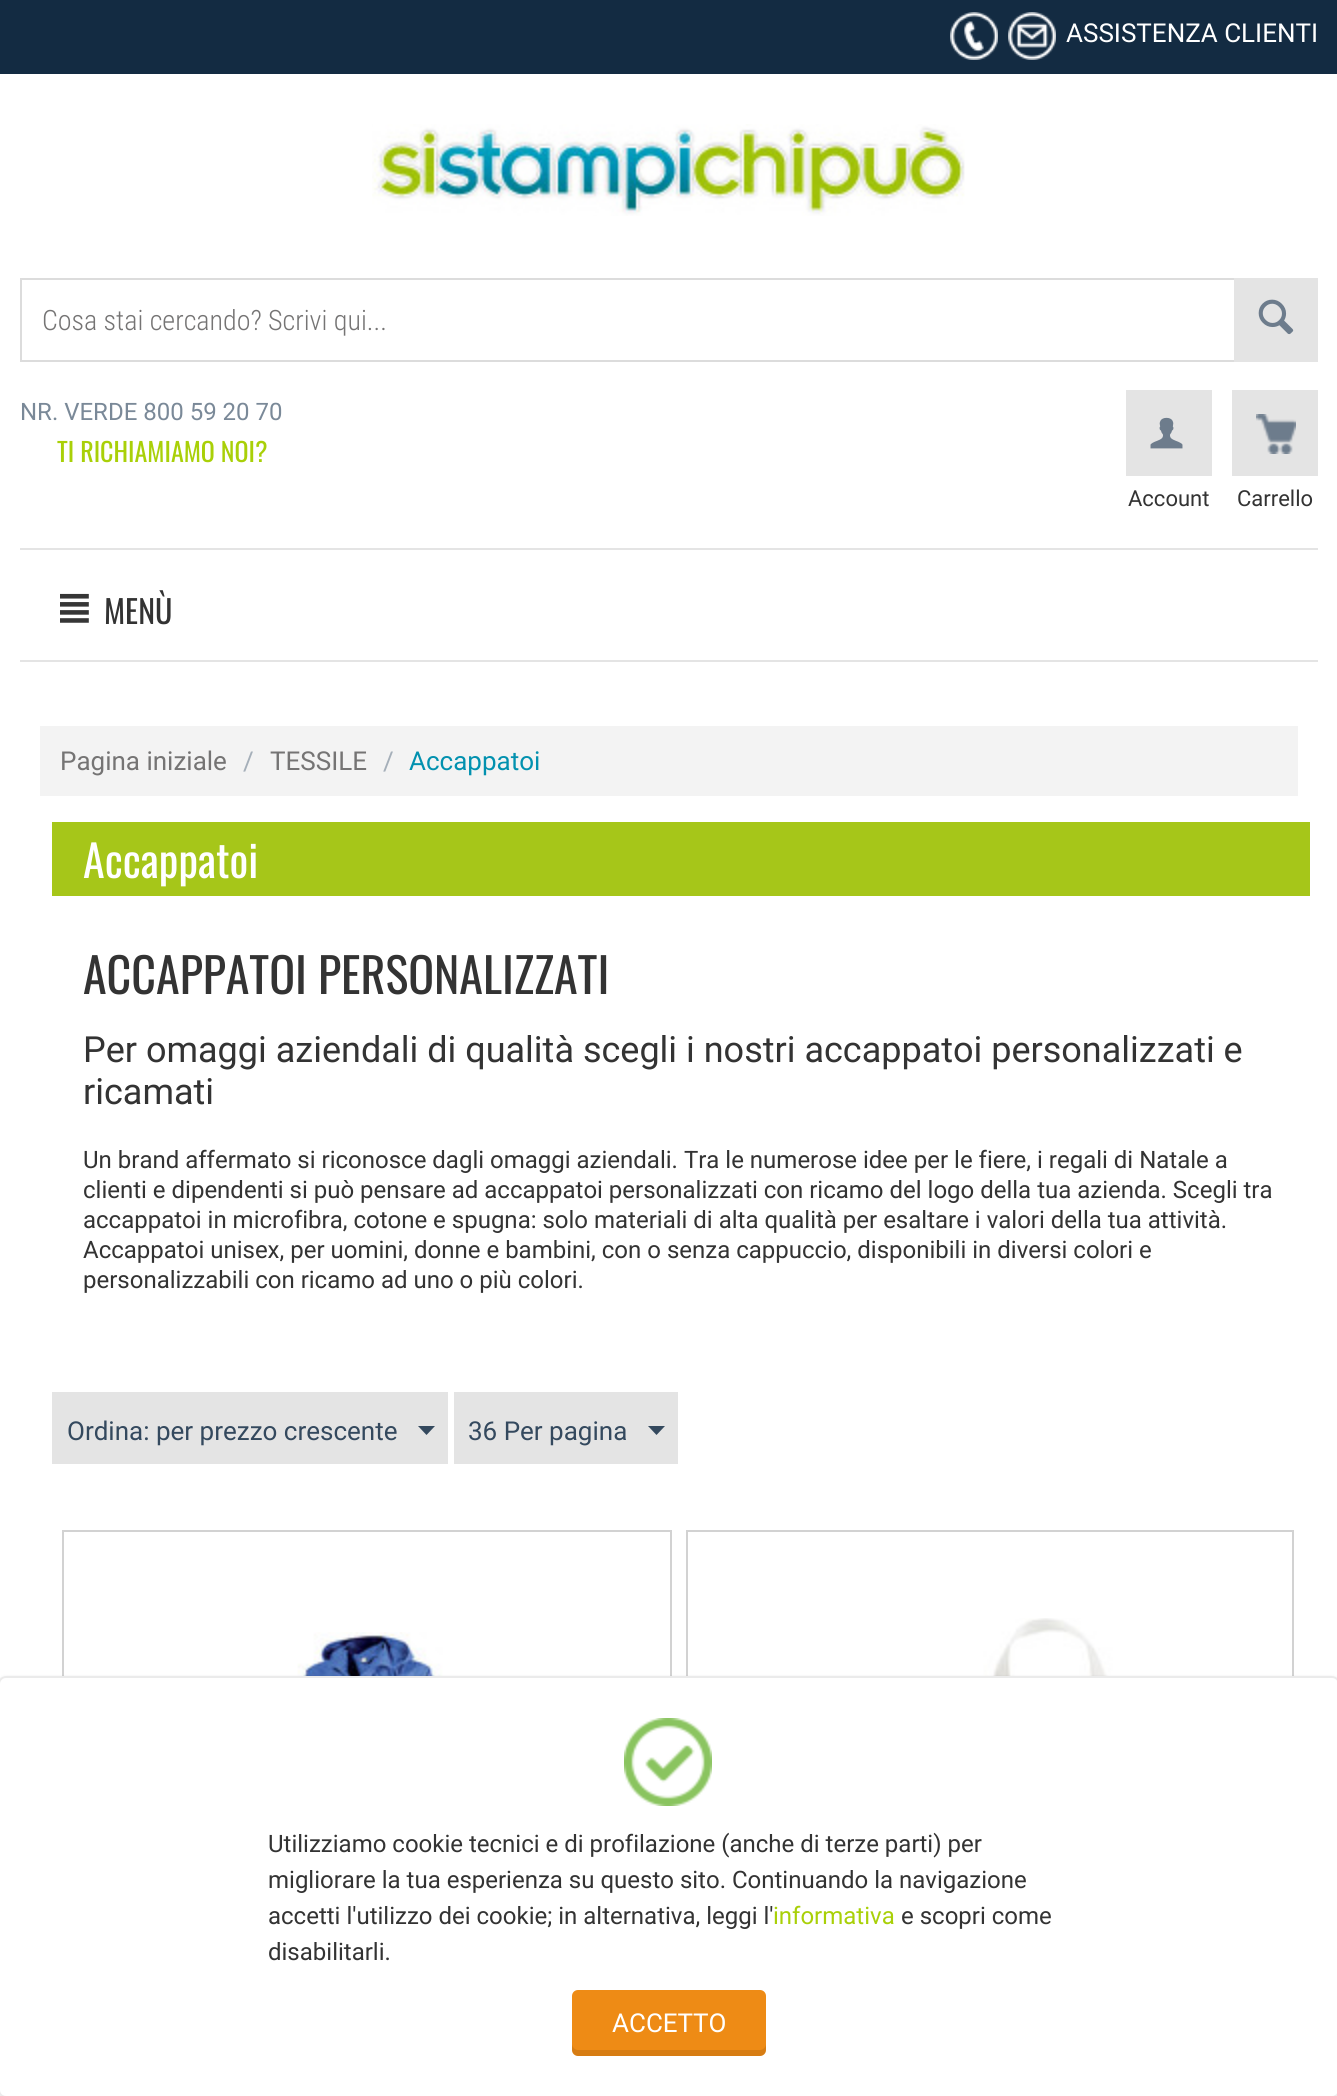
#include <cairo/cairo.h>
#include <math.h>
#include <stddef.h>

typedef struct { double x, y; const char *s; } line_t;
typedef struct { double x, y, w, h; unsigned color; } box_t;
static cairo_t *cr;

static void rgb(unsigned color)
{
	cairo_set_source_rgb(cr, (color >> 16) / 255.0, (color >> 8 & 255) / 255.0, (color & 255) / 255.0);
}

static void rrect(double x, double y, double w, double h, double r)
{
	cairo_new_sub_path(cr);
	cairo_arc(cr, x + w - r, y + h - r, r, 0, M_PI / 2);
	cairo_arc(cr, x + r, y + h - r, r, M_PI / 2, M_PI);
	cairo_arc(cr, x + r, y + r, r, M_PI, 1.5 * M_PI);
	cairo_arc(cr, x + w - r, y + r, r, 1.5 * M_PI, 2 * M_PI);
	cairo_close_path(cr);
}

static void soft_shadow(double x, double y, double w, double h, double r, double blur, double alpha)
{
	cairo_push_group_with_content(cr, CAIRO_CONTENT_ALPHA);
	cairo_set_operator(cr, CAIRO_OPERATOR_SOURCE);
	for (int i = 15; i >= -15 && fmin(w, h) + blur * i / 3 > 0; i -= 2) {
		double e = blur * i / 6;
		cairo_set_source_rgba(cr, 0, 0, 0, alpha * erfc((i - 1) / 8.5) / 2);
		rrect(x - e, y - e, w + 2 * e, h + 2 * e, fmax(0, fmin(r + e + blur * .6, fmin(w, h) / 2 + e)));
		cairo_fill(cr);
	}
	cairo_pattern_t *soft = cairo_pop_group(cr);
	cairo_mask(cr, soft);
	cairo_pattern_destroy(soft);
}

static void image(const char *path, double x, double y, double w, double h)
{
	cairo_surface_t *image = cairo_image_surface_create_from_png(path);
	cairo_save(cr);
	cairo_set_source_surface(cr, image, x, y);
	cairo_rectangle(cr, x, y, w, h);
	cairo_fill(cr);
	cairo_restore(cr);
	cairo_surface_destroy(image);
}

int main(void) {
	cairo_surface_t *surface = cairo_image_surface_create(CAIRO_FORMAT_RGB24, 1337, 2096);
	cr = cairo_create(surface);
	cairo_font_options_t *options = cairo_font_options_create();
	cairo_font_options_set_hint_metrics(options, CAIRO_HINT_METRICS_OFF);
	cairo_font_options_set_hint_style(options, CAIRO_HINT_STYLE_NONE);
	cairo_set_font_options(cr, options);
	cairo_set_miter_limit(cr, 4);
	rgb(0xffffff);
	cairo_paint(cr);
	rgb(0x132b42);
	cairo_rectangle(cr, 0, 0, 1337, 74);
	cairo_fill(cr);
	image("img/1.png", 950, 12, 48, 48);
	image("img/2.png", 1008, 12, 48, 48);
	image("img/3.png", 372, 124, 593, 92);
	cairo_rectangle(cr, 21, 279, 1296, 82);
	rgb(0xdcdcdc);
	cairo_stroke(cr);
	rgb(0xe4e4e4);
	cairo_rectangle(cr, 1234, 278, 84, 84);
	cairo_fill(cr);
	image("img/4.png", 1258, 299, 36, 36);
	cairo_rectangle(cr, 1126, 390, 86, 86);
	cairo_fill(cr);
	image("img/5.png", 1150, 417, 33, 32);
	cairo_rectangle(cr, 1232, 390, 86, 86);
	cairo_fill(cr);
	image("img/6.png", 1256, 414, 40, 40);
	cairo_rectangle(cr, 20, 548, 1298, 2);
	cairo_fill(cr);
	cairo_rectangle(cr, 20, 660, 1298, 2);
	cairo_fill(cr);
	image("img/7.png", 60, 593, 29, 30);
	{
		static const box_t items[] = {
			{40, 726, 1258, 70, 0xf3f3f3},
			{52, 822, 1258, 74, 0xa6c619},
			{52, 1392, 396, 72, 0xe4e4e4},
		};
		for (size_t i = 0; i < sizeof items / sizeof *items; i++) {
			rgb(items[i].color);
			cairo_rectangle(cr, items[i].x, items[i].y, items[i].w, items[i].h);
			cairo_fill(cr);
		}
	}
	rgb(0x34495e);
	cairo_new_path(cr);
	cairo_move_to(cr, 426.5, 1435);
	cairo_line_to(cr, 418, 1426);
	cairo_line_to(cr, 435, 1426);
	cairo_close_path(cr);
	cairo_fill(cr);
	rgb(0xe4e4e4);
	cairo_rectangle(cr, 454, 1392, 224, 72);
	cairo_fill(cr);
	rgb(0x34495e);
	cairo_new_path(cr);
	cairo_move_to(cr, 656.5, 1435);
	cairo_line_to(cr, 648, 1426);
	cairo_line_to(cr, 665, 1426);
	cairo_close_path(cr);
	cairo_fill(cr);
	cairo_rectangle(cr, 63, 1531, 608, 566);
	rgb(0xd2d2d2);
	cairo_stroke(cr);
	image("img/8.png", 282, 1632, 175, 44);
	cairo_rectangle(cr, 687, 1531, 606, 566);
	cairo_stroke(cr);
	image("img/9.png", 786, 1618, 418, 58);
	rgb(0x000000);
	soft_shadow(-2, 1678, 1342, 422, 8, 2, 0.2);
	rgb(0xffffff);
	rrect(-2, 1676, 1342, 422, 8);
	cairo_fill(cr);
	image("img/10.png", 624, 1718, 88, 88);
	rrect(-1, 1677, 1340, 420, 7);
	rgb(0xebebeb);
	cairo_stroke(cr);
	rgb(0xee8b15);
	rrect(572, 1990, 194, 66, 6);
	cairo_fill(cr);
	cairo_set_source_rgba(cr, 0, 0, 0, 0.1);
	cairo_new_path(cr);
	cairo_move_to(cr, 572, 2044);
	cairo_line_to(cr, 572, 2050);
	cairo_curve_to(cr, 572, 2053, 575, 2056, 578, 2056);
	cairo_line_to(cr, 760, 2056);
	cairo_curve_to(cr, 763, 2056, 766, 2053, 766, 2050);
	cairo_line_to(cr, 766, 2044);
	cairo_curve_to(cr, 766, 2047, 763, 2050, 760, 2050);
	cairo_line_to(cr, 578, 2050);
	cairo_curve_to(cr, 575, 2050, 572, 2047, 572, 2044);
	cairo_close_path(cr);
	cairo_fill(cr);
	cairo_select_font_face(cr, "Roboto", CAIRO_FONT_SLANT_NORMAL, CAIRO_FONT_WEIGHT_NORMAL);
	cairo_set_font_size(cr, 26);
	rgb(0xffffff);
	cairo_move_to(cr, 1066, 42);
	cairo_show_text(cr, "ASSISTENZA CLIENTI");
	cairo_select_font_face(cr, "Roboto Condensed Light", CAIRO_FONT_SLANT_NORMAL, CAIRO_FONT_WEIGHT_NORMAL);
	cairo_set_font_size(cr, 28);
	rgb(0x757474);
	cairo_move_to(cr, 42, 330);
	cairo_show_text(cr, "Cosa stai cercando? Scrivi qui...");
	cairo_select_font_face(cr, "Roboto", CAIRO_FONT_SLANT_NORMAL, CAIRO_FONT_WEIGHT_NORMAL);
	cairo_set_font_size(cr, 24);
	rgb(0x7a8998);
	cairo_move_to(cr, 20, 420);
	cairo_show_text(cr, "NR. VERDE 800 59 20 70");
	cairo_select_font_face(cr, "Oswald", CAIRO_FONT_SLANT_NORMAL, CAIRO_FONT_WEIGHT_NORMAL);
	cairo_set_font_size(cr, 26);
	rgb(0xa9d008);
	cairo_move_to(cr, 57, 462);
	cairo_show_text(cr, "TI RICHIAMIAMO NOI?");
	cairo_select_font_face(cr, "Roboto", CAIRO_FONT_SLANT_NORMAL, CAIRO_FONT_WEIGHT_NORMAL);
	cairo_set_font_size(cr, 22);
	rgb(0x333333);
	cairo_move_to(cr, 1128, 506);
	cairo_show_text(cr, "Account");
	cairo_move_to(cr, 1237, 506);
	cairo_show_text(cr, "Carrello");
	cairo_select_font_face(cr, "Oswald", CAIRO_FONT_SLANT_NORMAL, CAIRO_FONT_WEIGHT_NORMAL);
	cairo_set_font_size(cr, 32);
	cairo_move_to(cr, 104, 624);
	cairo_show_text(cr, "MENÙ");
	cairo_select_font_face(cr, "Roboto", CAIRO_FONT_SLANT_NORMAL, CAIRO_FONT_WEIGHT_NORMAL);
	cairo_set_font_size(cr, 26);
	rgb(0x757474);
	cairo_move_to(cr, 60, 770);
	cairo_show_text(cr, "Pagina iniziale");
	rgb(0xa5afb9);
	cairo_move_to(cr, 243, 770);
	cairo_show_text(cr, "/");
	rgb(0x757474);
	cairo_move_to(cr, 270, 770);
	cairo_show_text(cr, "TESSILE");
	rgb(0xa5afb9);
	cairo_move_to(cr, 383, 770);
	cairo_show_text(cr, "/");
	rgb(0x0291af);
	cairo_move_to(cr, 409, 770);
	cairo_show_text(cr, "Accappatoi");
	cairo_select_font_face(cr, "Oswald", CAIRO_FONT_SLANT_NORMAL, CAIRO_FONT_WEIGHT_NORMAL);
	cairo_set_font_size(cr, 44);
	rgb(0xffffff);
	cairo_move_to(cr, 83, 878);
	cairo_show_text(cr, "Accappatoi");
	cairo_set_font_size(cr, 48);
	rgb(0x333333);
	cairo_move_to(cr, 83, 994);
	cairo_show_text(cr, "ACCAPPATOI PERSONALIZZATI");
	cairo_select_font_face(cr, "Roboto", CAIRO_FONT_SLANT_NORMAL, CAIRO_FONT_WEIGHT_NORMAL);
	cairo_set_font_size(cr, 36);
	cairo_move_to(cr, 83, 1062);
	cairo_show_text(cr, "Per omaggi aziendali di qualità scegli i nostri accappatoi personalizzati e");
	cairo_move_to(cr, 83, 1104);
	cairo_show_text(cr, "ricamati");
	cairo_set_font_size(cr, 24);
	{
		static const line_t items[] = {
			{83, 1168, "Un brand affermato si riconosce dagli omaggi aziendali. Tra le numerose idee per le fiere, i regali di Natale a"},
			{83, 1198, "clienti e dipendenti si può pensare ad accappatoi personalizzati con ricamo del logo della tua azienda. Scegli tra"},
			{83, 1228, "accappatoi in microfibra, cotone e spugna: solo materiali di alta qualità per esaltare i valori della tua attività."},
			{83, 1258, "Accappatoi unisex, per uomini, donne e bambini, con o senza cappuccio, disponibili in diversi colori e"},
			{83, 1288, "personalizzabili con ricamo ad uno o più colori."},
		};
		for (size_t i = 0; i < sizeof items / sizeof *items; i++) {
			cairo_move_to(cr, items[i].x, items[i].y);
			cairo_show_text(cr, items[i].s);
		}
	}
	cairo_set_font_size(cr, 26);
	rgb(0x34495e);
	cairo_move_to(cr, 67, 1440);
	cairo_show_text(cr, "Ordina: per prezzo crescente");
	cairo_move_to(cr, 468, 1440);
	cairo_show_text(cr, "36 Per pagina");
	cairo_set_font_size(cr, 24);
	rgb(0x333333);
	{
		static const line_t items[] = {
			{268, 1852, "Utilizziamo cookie tecnici e di profilazione (anche di terze parti) per"},
			{268, 1888, "migliorare la tua esperienza su questo sito. Continuando la navigazione"},
			{268, 1924, "accetti l'utilizzo dei cookie; in alternativa, leggi l'"},
		};
		for (size_t i = 0; i < sizeof items / sizeof *items; i++) {
			cairo_move_to(cr, items[i].x, items[i].y);
			cairo_show_text(cr, items[i].s);
		}
	}
	rgb(0xa9d008);
	cairo_move_to(cr, 773, 1924);
	cairo_show_text(cr, "informativa");
	rgb(0x333333);
	cairo_move_to(cr, 901, 1924);
	cairo_show_text(cr, "e scopri come");
	cairo_move_to(cr, 268, 1960);
	cairo_show_text(cr, "disabilitarli.");
	cairo_set_font_size(cr, 26);
	rgb(0xffffff);
	cairo_move_to(cr, 612, 2032);
	cairo_show_text(cr, "ACCETTO");
	cairo_surface_write_to_png(surface, "page.png");
	cairo_font_options_destroy(options);
	cairo_destroy(cr);
	cairo_surface_destroy(surface);
	return 0;
}
